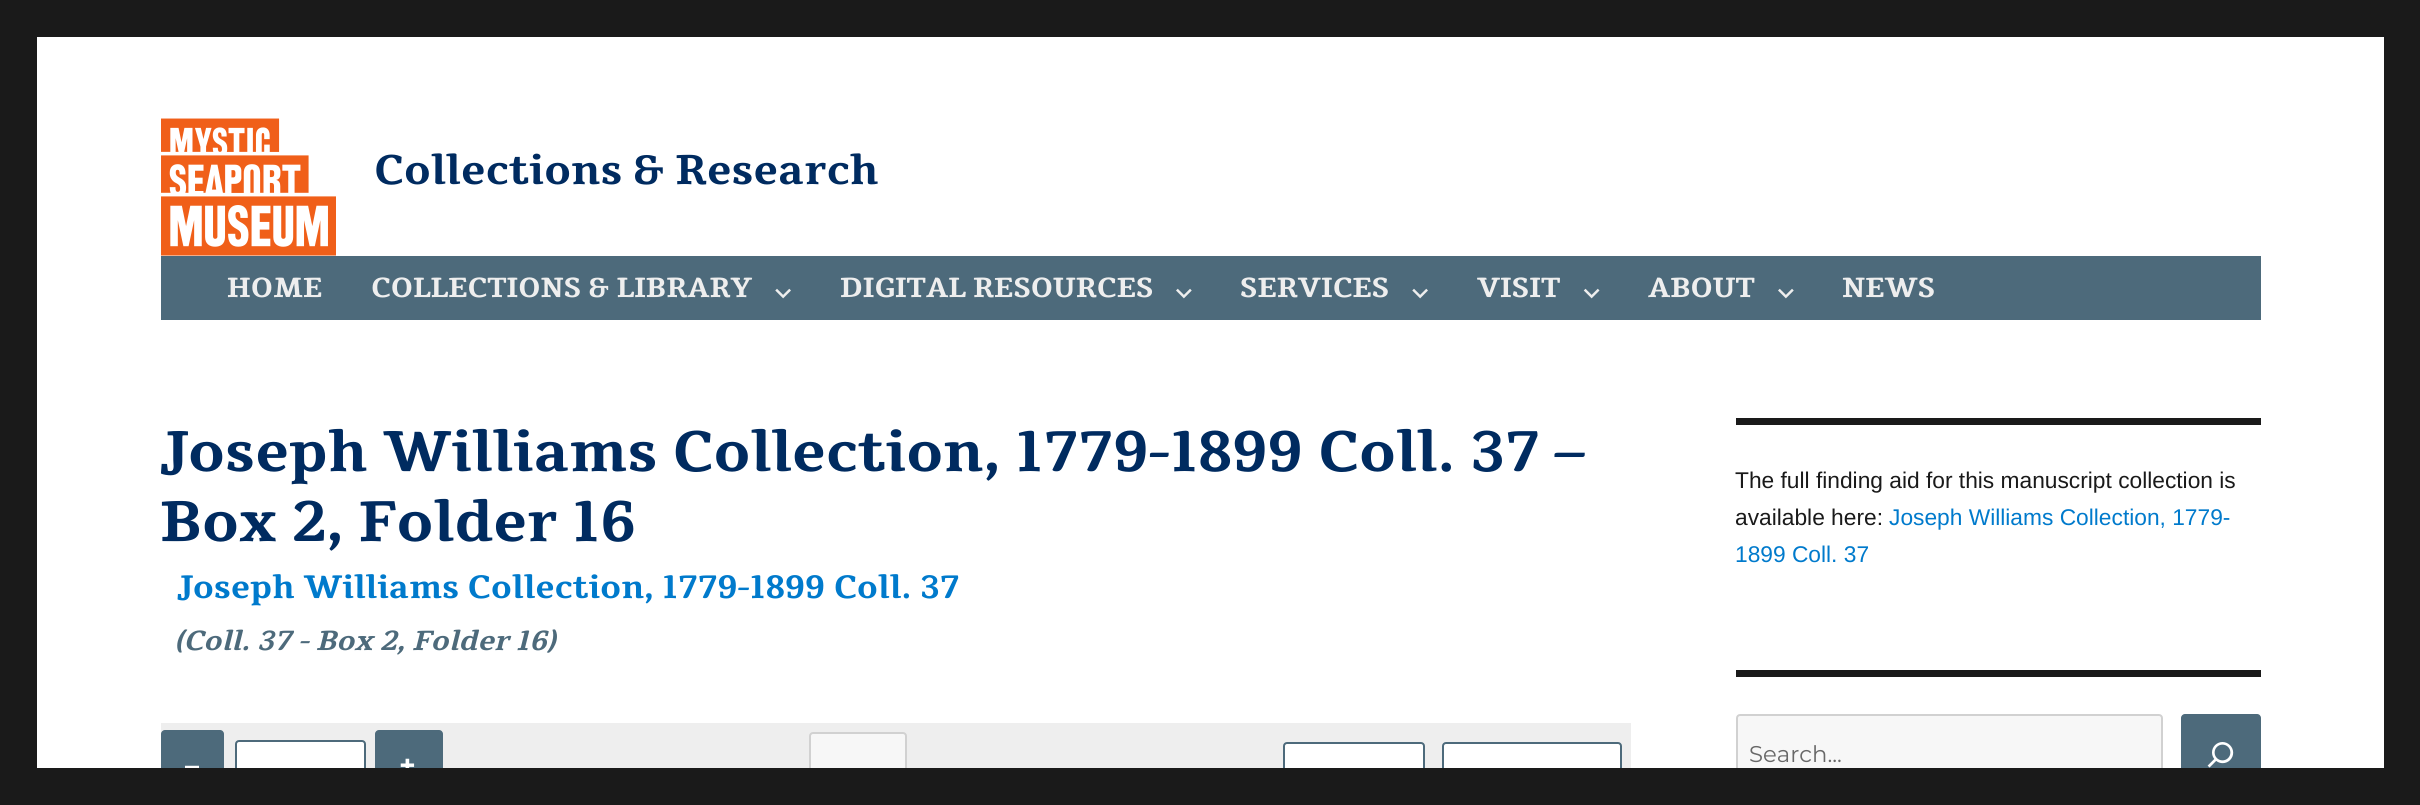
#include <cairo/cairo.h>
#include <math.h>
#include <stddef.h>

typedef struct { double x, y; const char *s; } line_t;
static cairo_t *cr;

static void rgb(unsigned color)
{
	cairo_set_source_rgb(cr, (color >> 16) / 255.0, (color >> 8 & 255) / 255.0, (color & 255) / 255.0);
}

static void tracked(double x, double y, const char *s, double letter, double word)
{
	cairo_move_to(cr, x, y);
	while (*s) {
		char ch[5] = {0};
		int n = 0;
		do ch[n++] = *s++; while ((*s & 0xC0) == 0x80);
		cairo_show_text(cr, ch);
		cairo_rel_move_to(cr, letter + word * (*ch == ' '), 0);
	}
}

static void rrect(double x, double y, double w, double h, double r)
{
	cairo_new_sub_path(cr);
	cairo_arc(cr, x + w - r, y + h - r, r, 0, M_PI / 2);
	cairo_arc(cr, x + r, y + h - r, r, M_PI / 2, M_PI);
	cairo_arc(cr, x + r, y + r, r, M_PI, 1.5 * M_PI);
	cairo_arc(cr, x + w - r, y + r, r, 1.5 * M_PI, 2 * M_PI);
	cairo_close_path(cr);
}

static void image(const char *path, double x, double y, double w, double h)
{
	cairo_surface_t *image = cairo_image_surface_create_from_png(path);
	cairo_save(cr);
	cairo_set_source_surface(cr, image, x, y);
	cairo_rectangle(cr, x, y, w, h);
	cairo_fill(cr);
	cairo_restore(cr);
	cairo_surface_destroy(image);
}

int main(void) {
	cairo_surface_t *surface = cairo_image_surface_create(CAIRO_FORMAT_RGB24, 2420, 805);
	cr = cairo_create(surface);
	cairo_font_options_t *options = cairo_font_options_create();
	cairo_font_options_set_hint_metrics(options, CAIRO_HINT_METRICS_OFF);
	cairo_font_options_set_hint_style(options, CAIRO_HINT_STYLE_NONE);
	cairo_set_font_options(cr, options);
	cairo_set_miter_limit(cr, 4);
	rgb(0x1a1a1a);
	cairo_paint(cr);
	rgb(0xffffff);
	cairo_rectangle(cr, 37, 37, 2347, 731);
	cairo_fill(cr);
	image("img/1.png", 161, 118, 175, 138);
	rgb(0x4d6a7b);
	cairo_rectangle(cr, 161, 256, 2100, 64);
	cairo_fill(cr);
	image("img/2.png", 775, 288, 16, 11);
	image("img/3.png", 1176, 288, 16, 11);
	image("img/2.png", 1412, 288, 16, 11);
	image("img/4.png", 1583, 288, 17, 11);
	image("img/3.png", 1778, 288, 16, 11);
	rgb(0xeeeeee);
	cairo_rectangle(cr, 161, 723, 1470, 45);
	cairo_fill(cr);
	rgb(0x4d6a7b);
	rrect(161, 730, 63, 73, 4);
	cairo_fill(cr);
	rgb(0xffffff);
	rrect(236, 741, 129, 47, 3);
	cairo_fill_preserve(cr);
	rgb(0x4d6a7b);
	cairo_stroke(cr);
	rrect(375, 730, 68, 73, 4);
	cairo_fill(cr);
	rgb(0xf7f7f7);
	rrect(810, 733, 96, 68, 3);
	cairo_fill_preserve(cr);
	rgb(0xd1d1d1);
	cairo_stroke(cr);
	rgb(0xffffff);
	rrect(1284, 743, 140, 47, 3);
	cairo_fill_preserve(cr);
	rgb(0x4d6a7b);
	cairo_stroke(cr);
	rgb(0xffffff);
	rrect(1443, 743, 178, 47, 3);
	cairo_fill_preserve(cr);
	rgb(0x4d6a7b);
	cairo_stroke(cr);
	rgb(0x1a1a1a);
	cairo_rectangle(cr, 1736, 418, 525, 7);
	cairo_fill(cr);
	cairo_rectangle(cr, 1736, 670, 525, 7);
	cairo_fill(cr);
	rgb(0xf7f7f7);
	rrect(1737, 715, 425, 79, 3);
	cairo_fill_preserve(cr);
	rgb(0xd1d1d1);
	cairo_stroke(cr);
	rgb(0x4d6a7b);
	rrect(2181, 714, 80, 81, 4);
	cairo_fill(cr);
	image("img/5.png", 2207, 742, 27, 26);
	cairo_select_font_face(cr, "Tienne", CAIRO_FONT_SLANT_NORMAL, CAIRO_FONT_WEIGHT_BOLD);
	cairo_set_font_size(cr, 42);
	rgb(0x002b60);
	cairo_move_to(cr, 374, 184);
	cairo_show_text(cr, "Collections & Research");
	cairo_set_font_size(cr, 28);
	rgb(0xeeeeee);
	{
		static const line_t items[] = {
			{227, 297, "HOME"},
			{371, 297, "COLLECTIONS & LIBRARY"},
			{840, 297, "DIGITAL RESOURCES"},
			{1240, 297, "SERVICES"},
			{1477, 297, "VISIT"},
			{1648, 297, "ABOUT"},
			{1842, 297, "NEWS"},
		};
		for (size_t i = 0; i < sizeof items / sizeof *items; i++) {
			cairo_move_to(cr, items[i].x, items[i].y);
			cairo_show_text(cr, items[i].s);
		}
	}
	cairo_set_font_size(cr, 57.75);
	rgb(0x002b60);
	cairo_move_to(cr, 160, 471);
	cairo_show_text(cr, "Joseph Williams Collection, 1779-1899 Coll. 37 –");
	cairo_move_to(cr, 160, 541);
	cairo_show_text(cr, "Box 2, Folder 16");
	cairo_set_font_size(cr, 32.75);
	rgb(0x007acc);
	cairo_move_to(cr, 177, 598);
	cairo_show_text(cr, "Joseph Williams Collection, 1779-1899 Coll. 37");
	cairo_select_font_face(cr, "Tienne", CAIRO_FONT_SLANT_ITALIC, CAIRO_FONT_WEIGHT_BOLD);
	cairo_set_font_size(cr, 28);
	rgb(0x4d6a7b);
	cairo_move_to(cr, 174, 650);
	cairo_show_text(cr, "(Coll. 37 - Box 2, Folder 16)");
	cairo_select_font_face(cr, "Montserrat", CAIRO_FONT_SLANT_NORMAL, CAIRO_FONT_WEIGHT_BOLD);
	rgb(0xffffff);
	tracked(185, 775, "–", 1, 0);
	tracked(399, 775, "+", 1, 0);
	cairo_select_font_face(cr, "Liberation Sans", CAIRO_FONT_SLANT_NORMAL, CAIRO_FONT_WEIGHT_NORMAL);
	cairo_set_font_size(cr, 22.75);
	rgb(0x1a1a1a);
	cairo_move_to(cr, 1735, 488);
	cairo_show_text(cr, "The full finding aid for this manuscript collection is");
	cairo_move_to(cr, 1735, 525);
	cairo_show_text(cr, "available here:");
	rgb(0x007acc);
	cairo_move_to(cr, 1889, 525);
	cairo_show_text(cr, "Joseph Williams Collection, 1779-");
	cairo_move_to(cr, 1735, 562);
	cairo_show_text(cr, "1899 Coll. 37");
	cairo_select_font_face(cr, "Montserrat", CAIRO_FONT_SLANT_NORMAL, CAIRO_FONT_WEIGHT_NORMAL);
	rgb(0x686868);
	cairo_move_to(cr, 1749, 762);
	cairo_show_text(cr, "Search...");
	rgb(0x1a1a1a);
	cairo_rectangle(cr, 161, 768, 2100, 35);
	cairo_fill(cr);
	cairo_surface_write_to_png(surface, "page.png");
	cairo_font_options_destroy(options);
	cairo_destroy(cr);
	cairo_surface_destroy(surface);
	return 0;
}
